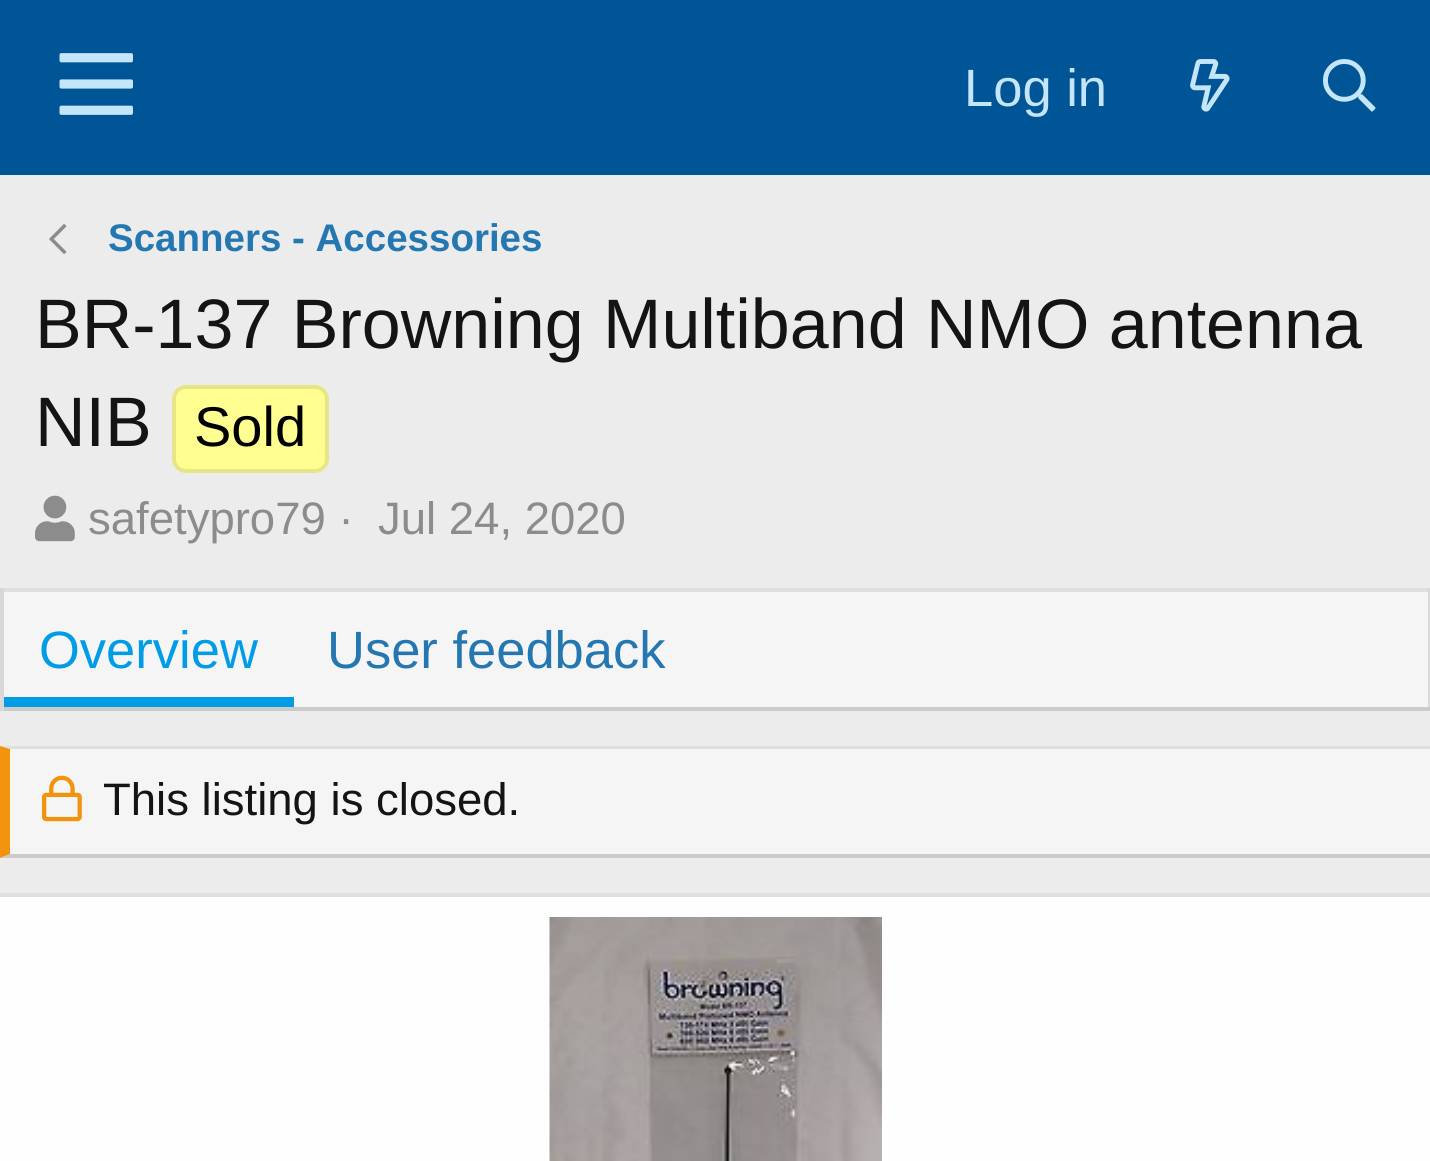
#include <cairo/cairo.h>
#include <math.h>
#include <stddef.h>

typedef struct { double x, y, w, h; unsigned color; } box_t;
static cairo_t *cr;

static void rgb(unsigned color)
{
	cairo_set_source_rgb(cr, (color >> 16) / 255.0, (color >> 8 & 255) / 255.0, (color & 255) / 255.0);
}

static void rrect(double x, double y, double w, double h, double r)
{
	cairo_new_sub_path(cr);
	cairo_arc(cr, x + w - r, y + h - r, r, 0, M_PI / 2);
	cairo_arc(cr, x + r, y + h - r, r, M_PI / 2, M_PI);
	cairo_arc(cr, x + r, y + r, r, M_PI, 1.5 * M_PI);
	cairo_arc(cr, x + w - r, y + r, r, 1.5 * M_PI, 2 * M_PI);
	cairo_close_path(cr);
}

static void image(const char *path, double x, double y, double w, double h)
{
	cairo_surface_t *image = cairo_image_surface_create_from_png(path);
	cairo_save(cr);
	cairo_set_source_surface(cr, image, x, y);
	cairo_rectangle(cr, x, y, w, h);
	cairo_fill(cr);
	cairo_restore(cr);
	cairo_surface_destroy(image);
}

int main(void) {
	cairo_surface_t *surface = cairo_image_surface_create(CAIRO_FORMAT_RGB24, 1430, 1161);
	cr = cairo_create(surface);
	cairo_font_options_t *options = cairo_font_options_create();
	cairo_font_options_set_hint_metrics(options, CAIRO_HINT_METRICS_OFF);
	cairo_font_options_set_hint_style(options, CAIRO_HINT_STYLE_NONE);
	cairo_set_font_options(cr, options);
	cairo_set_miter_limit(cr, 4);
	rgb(0xececec);
	cairo_paint(cr);
	rgb(0x005597);
	cairo_rectangle(cr, 0, 0, 1430, 175);
	cairo_fill(cr);
	image("img/1.png", 59, 53, 74, 62);
	image("img/2.png", 1190, 59, 40, 53);
	image("img/3.png", 1323, 59, 53, 53);
	image("img/4.png", 49, 224, 18, 30);
	rgb(0xffff91);
	rrect(174, 387, 153, 84, 12);
	cairo_fill_preserve(cr);
	rgb(0xe6e687);
	cairo_set_line_width(cr, 4);
	cairo_stroke(cr);
	image("img/5.png", 35, 495, 40, 47);
	{
		static const box_t items[] = {
			{4, 592, 1424, 115, 0xf5f5f5},
			{0, 588, 1430, 4, 0xdfdfdf},
			{1428, 588, 2, 123, 0xd8d8d8},
			{0, 707, 1430, 4, 0xcbcbcb},
			{0, 588, 4, 123, 0xd8d8d8},
			{4, 697, 290, 10, 0x009ce5},
			{0, 746, 1430, 112, 0xf5f5f5},
		};
		for (size_t i = 0; i < sizeof items / sizeof *items; i++) {
			rgb(items[i].color);
			cairo_rectangle(cr, items[i].x, items[i].y, items[i].w, items[i].h);
			cairo_fill(cr);
		}
	}
	rgb(0xdfdfdf);
	cairo_new_path(cr);
	cairo_move_to(cr, 0, 746);
	cairo_line_to(cr, 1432, 746);
	cairo_line_to(cr, 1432, 749);
	cairo_line_to(cr, 10, 749);
	cairo_close_path(cr);
	cairo_fill(cr);
	rgb(0xcbcbcb);
	cairo_new_path(cr);
	cairo_move_to(cr, 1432, 858);
	cairo_line_to(cr, 0, 858);
	cairo_line_to(cr, 10, 854);
	cairo_line_to(cr, 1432, 854);
	cairo_close_path(cr);
	cairo_fill(cr);
	rgb(0xf2930d);
	cairo_new_path(cr);
	cairo_move_to(cr, 0, 858);
	cairo_line_to(cr, 0, 746);
	cairo_line_to(cr, 10, 749);
	cairo_line_to(cr, 10, 854);
	cairo_close_path(cr);
	cairo_fill(cr);
	image("img/6.png", 42, 775, 40, 47);
	rgb(0xfefefe);
	cairo_rectangle(cr, 0, 897, 1430, 264);
	cairo_fill(cr);
	rgb(0xdfdfdf);
	cairo_rectangle(cr, 0, 893, 1430, 4);
	cairo_fill(cr);
	image("img/7.png", 549, 917, 333, 244);
	cairo_select_font_face(cr, "Liberation Sans", CAIRO_FONT_SLANT_NORMAL, CAIRO_FONT_WEIGHT_NORMAL);
	cairo_set_font_size(cr, 52.5);
	rgb(0xc5e5f8);
	cairo_move_to(cr, 964, 106);
	cairo_show_text(cr, "Log in");
	cairo_select_font_face(cr, "Liberation Sans", CAIRO_FONT_SLANT_NORMAL, CAIRO_FONT_WEIGHT_BOLD);
	cairo_set_font_size(cr, 38.5);
	rgb(0x2577b1);
	cairo_move_to(cr, 108, 251);
	cairo_show_text(cr, "Scanners - Accessories");
	cairo_select_font_face(cr, "Liberation Sans", CAIRO_FONT_SLANT_NORMAL, CAIRO_FONT_WEIGHT_NORMAL);
	cairo_set_font_size(cr, 70);
	rgb(0x141414);
	cairo_move_to(cr, 35, 348);
	cairo_show_text(cr, "BR-137 Browning Multiband NMO antenna");
	cairo_move_to(cr, 35, 446);
	cairo_show_text(cr, "NIB");
	cairo_set_font_size(cr, 56);
	rgb(0x000000);
	cairo_move_to(cr, 194, 446);
	cairo_show_text(cr, "Sold");
	cairo_set_font_size(cr, 45.5);
	rgb(0x8c8c8c);
	cairo_move_to(cr, 88, 534);
	cairo_show_text(cr, "safetypro79 ·");
	cairo_move_to(cr, 378, 534);
	cairo_show_text(cr, "Jul 24, 2020");
	cairo_set_font_size(cr, 52.5);
	rgb(0x009ce5);
	cairo_move_to(cr, 39, 668);
	cairo_show_text(cr, "Overview");
	rgb(0x2577b1);
	cairo_move_to(cr, 327, 668);
	cairo_show_text(cr, "User feedback");
	cairo_set_font_size(cr, 45.5);
	rgb(0x141414);
	cairo_move_to(cr, 103, 815);
	cairo_show_text(cr, "This listing is closed.");
	cairo_surface_write_to_png(surface, "page.png");
	cairo_font_options_destroy(options);
	cairo_destroy(cr);
	cairo_surface_destroy(surface);
	return 0;
}
